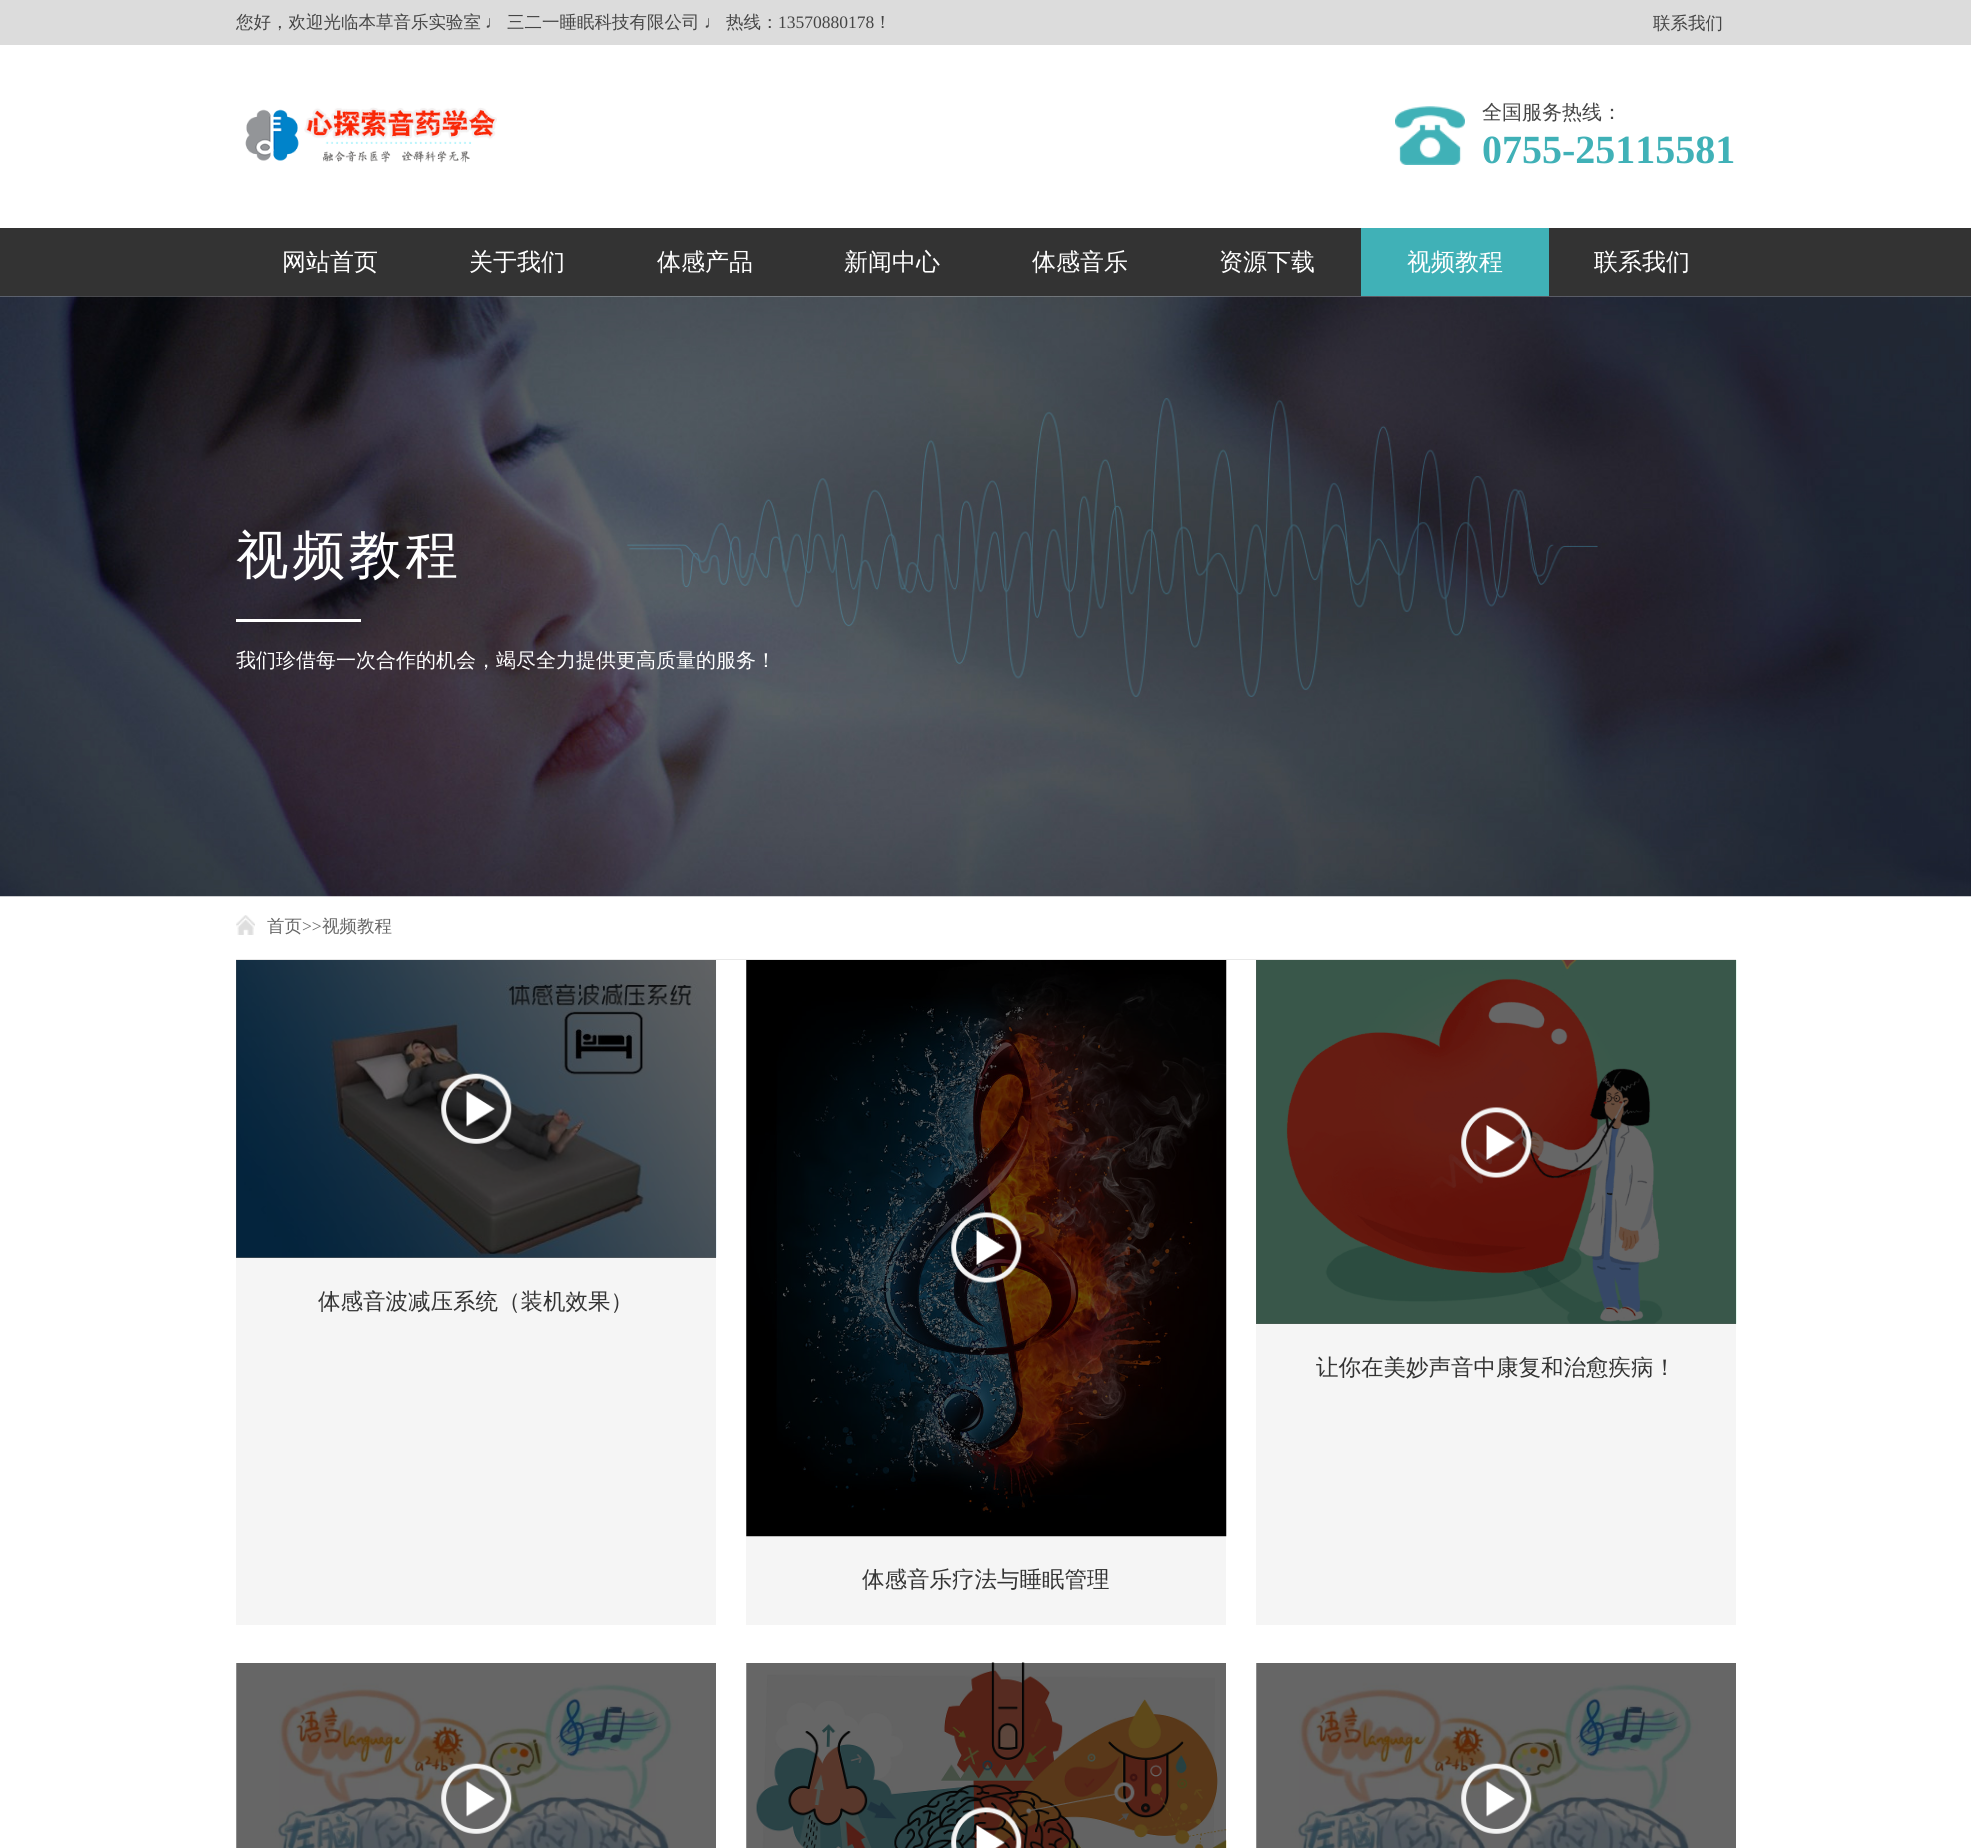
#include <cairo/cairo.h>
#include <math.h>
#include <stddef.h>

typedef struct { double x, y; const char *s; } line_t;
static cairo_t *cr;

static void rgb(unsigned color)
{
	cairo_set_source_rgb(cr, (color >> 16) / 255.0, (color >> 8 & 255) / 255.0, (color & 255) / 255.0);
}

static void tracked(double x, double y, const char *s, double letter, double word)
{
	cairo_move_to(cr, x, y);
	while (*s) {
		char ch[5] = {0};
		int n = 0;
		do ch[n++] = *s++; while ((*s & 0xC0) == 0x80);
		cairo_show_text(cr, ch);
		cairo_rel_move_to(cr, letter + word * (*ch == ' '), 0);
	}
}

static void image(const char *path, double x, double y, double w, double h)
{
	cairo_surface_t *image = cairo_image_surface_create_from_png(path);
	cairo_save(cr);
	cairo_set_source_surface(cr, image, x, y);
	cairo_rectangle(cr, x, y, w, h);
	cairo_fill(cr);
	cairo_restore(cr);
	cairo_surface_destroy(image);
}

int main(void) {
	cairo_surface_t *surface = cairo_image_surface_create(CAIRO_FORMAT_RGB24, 1971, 1848);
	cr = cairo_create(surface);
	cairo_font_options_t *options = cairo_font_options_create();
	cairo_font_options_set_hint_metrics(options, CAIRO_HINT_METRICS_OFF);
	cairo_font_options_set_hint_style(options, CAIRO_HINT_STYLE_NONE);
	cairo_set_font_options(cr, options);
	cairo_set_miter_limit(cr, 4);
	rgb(0xffffff);
	cairo_paint(cr);
	rgb(0xdcdcdc);
	cairo_rectangle(cr, 0, 0, 1971, 45);
	cairo_fill(cr);
	image("img/1.png", 245, 107, 252, 56);
	image("img/2.png", 1395, 106, 70, 59);
	rgb(0x333333);
	cairo_rectangle(cr, 0, 228, 1971, 68);
	cairo_fill(cr);
	rgb(0x40b1b7);
	cairo_rectangle(cr, 1361, 228, 188, 68);
	cairo_fill(cr);
	image("img/3.png", 0, 296, 1971, 601);
	rgb(0xffffff);
	cairo_rectangle(cr, 236, 619, 125, 3);
	cairo_fill(cr);
	rgb(0xe8e8e8);
	cairo_rectangle(cr, 236, 959, 1500, 1);
	cairo_fill(cr);
	image("img/4.png", 236, 915, 19, 20);
	rgb(0xf5f5f5);
	cairo_rectangle(cr, 236, 1258, 480, 367);
	cairo_fill(cr);
	rgb(0x626262);
	cairo_rectangle(cr, 236, 960, 480, 298);
	cairo_fill(cr);
	image("img/5.png", 236, 960, 481, 298);
	image("img/6.png", 441, 1073, 71, 71);
	rgb(0xf5f5f5);
	cairo_rectangle(cr, 1256, 1324, 480, 301);
	cairo_fill(cr);
	rgb(0x626262);
	cairo_rectangle(cr, 1256, 960, 480, 364);
	cairo_fill(cr);
	image("img/7.png", 1256, 960, 481, 364);
	image("img/8.png", 1461, 1107, 71, 71);
	rgb(0xf5f5f5);
	cairo_rectangle(cr, 746, 960, 480, 665);
	cairo_fill(cr);
	image("img/9.png", 746, 960, 481, 577);
	image("img/10.png", 951, 1212, 71, 71);
	image("img/11.png", 236, 1663, 480, 185);
	image("img/12.png", 441, 1763, 71, 71);
	image("img/13.png", 746, 1662, 481, 186);
	image("img/14.png", 951, 1807, 71, 41);
	image("img/11.png", 1256, 1663, 480, 185);
	image("img/12.png", 1461, 1763, 71, 71);
	cairo_select_font_face(cr, "WenQuanYi Zen Hei Medium", CAIRO_FONT_SLANT_NORMAL, CAIRO_FONT_WEIGHT_NORMAL);
	cairo_set_font_size(cr, 17.5);
	rgb(0x454545);
	cairo_move_to(cr, 236, 28);
	cairo_show_text(cr, "您好，欢迎光临本草音乐实验室");
	cairo_select_font_face(cr, "Liberation Serif", CAIRO_FONT_SLANT_NORMAL, CAIRO_FONT_WEIGHT_NORMAL);
	cairo_move_to(cr, 485, 28);
	cairo_show_text(cr, "♩");
	cairo_select_font_face(cr, "WenQuanYi Zen Hei Medium", CAIRO_FONT_SLANT_NORMAL, CAIRO_FONT_WEIGHT_NORMAL);
	cairo_move_to(cr, 507, 28);
	cairo_show_text(cr, "三二一睡眠科技有限公司");
	cairo_select_font_face(cr, "Liberation Serif", CAIRO_FONT_SLANT_NORMAL, CAIRO_FONT_WEIGHT_NORMAL);
	cairo_move_to(cr, 704, 28);
	cairo_show_text(cr, "♩");
	cairo_select_font_face(cr, "WenQuanYi Zen Hei Medium", CAIRO_FONT_SLANT_NORMAL, CAIRO_FONT_WEIGHT_NORMAL);
	cairo_move_to(cr, 726, 28);
	cairo_show_text(cr, "热线：");
	cairo_select_font_face(cr, "Liberation Serif", CAIRO_FONT_SLANT_NORMAL, CAIRO_FONT_WEIGHT_NORMAL);
	cairo_move_to(cr, 778, 28);
	cairo_show_text(cr, "13570880178");
	cairo_select_font_face(cr, "WenQuanYi Zen Hei Medium", CAIRO_FONT_SLANT_NORMAL, CAIRO_FONT_WEIGHT_NORMAL);
	cairo_move_to(cr, 874, 28);
	cairo_show_text(cr, "！");
	cairo_move_to(cr, 1653, 29);
	cairo_show_text(cr, "联系我们");
	cairo_set_font_size(cr, 20);
	cairo_move_to(cr, 1482, 119);
	cairo_show_text(cr, "全国服务热线：");
	cairo_select_font_face(cr, "Liberation Serif", CAIRO_FONT_SLANT_NORMAL, CAIRO_FONT_WEIGHT_BOLD);
	cairo_set_font_size(cr, 40);
	rgb(0x40b1b7);
	cairo_move_to(cr, 1482, 163);
	cairo_show_text(cr, "0755-25115581");
	cairo_select_font_face(cr, "WenQuanYi Zen Hei Medium", CAIRO_FONT_SLANT_NORMAL, CAIRO_FONT_WEIGHT_NORMAL);
	cairo_set_font_size(cr, 24);
	rgb(0xffffff);
	{
		static const line_t items[] = {
			{282, 270, "网站首页"},
			{469, 270, "关于我们"},
			{657, 270, "体感产品"},
			{844, 270, "新闻中心"},
			{1032, 270, "体感音乐"},
			{1219, 270, "资源下载"},
			{1407, 270, "视频教程"},
			{1594, 270, "联系我们"},
		};
		for (size_t i = 0; i < sizeof items / sizeof *items; i++) {
			cairo_move_to(cr, items[i].x, items[i].y);
			cairo_show_text(cr, items[i].s);
		}
	}
	cairo_set_font_size(cr, 52.5);
	tracked(236, 573, "视频教程", 4, 0);
	cairo_set_font_size(cr, 20);
	cairo_move_to(cr, 236, 667);
	cairo_show_text(cr, "我们珍借每一次合作的机会，竭尽全力提供更高质量的服务！");
	cairo_set_font_size(cr, 17.5);
	rgb(0x666666);
	cairo_move_to(cr, 267, 932);
	cairo_show_text(cr, "首页");
	cairo_select_font_face(cr, "Liberation Serif", CAIRO_FONT_SLANT_NORMAL, CAIRO_FONT_WEIGHT_NORMAL);
	cairo_move_to(cr, 302, 932);
	cairo_show_text(cr, ">>");
	cairo_select_font_face(cr, "WenQuanYi Zen Hei Medium", CAIRO_FONT_SLANT_NORMAL, CAIRO_FONT_WEIGHT_NORMAL);
	cairo_move_to(cr, 322, 932);
	cairo_show_text(cr, "视频教程");
	cairo_set_font_size(cr, 22.5);
	rgb(0x333333);
	{
		static const line_t items[] = {
			{318, 1309, "体感音波减压系统（装机效果）"},
			{1316, 1375, "让你在美妙声音中康复和治愈疾病！"},
			{862, 1587, "体感音乐疗法与睡眠管理"},
		};
		for (size_t i = 0; i < sizeof items / sizeof *items; i++) {
			cairo_move_to(cr, items[i].x, items[i].y);
			cairo_show_text(cr, items[i].s);
		}
	}
	cairo_surface_write_to_png(surface, "page.png");
	cairo_font_options_destroy(options);
	cairo_destroy(cr);
	cairo_surface_destroy(surface);
	return 0;
}
